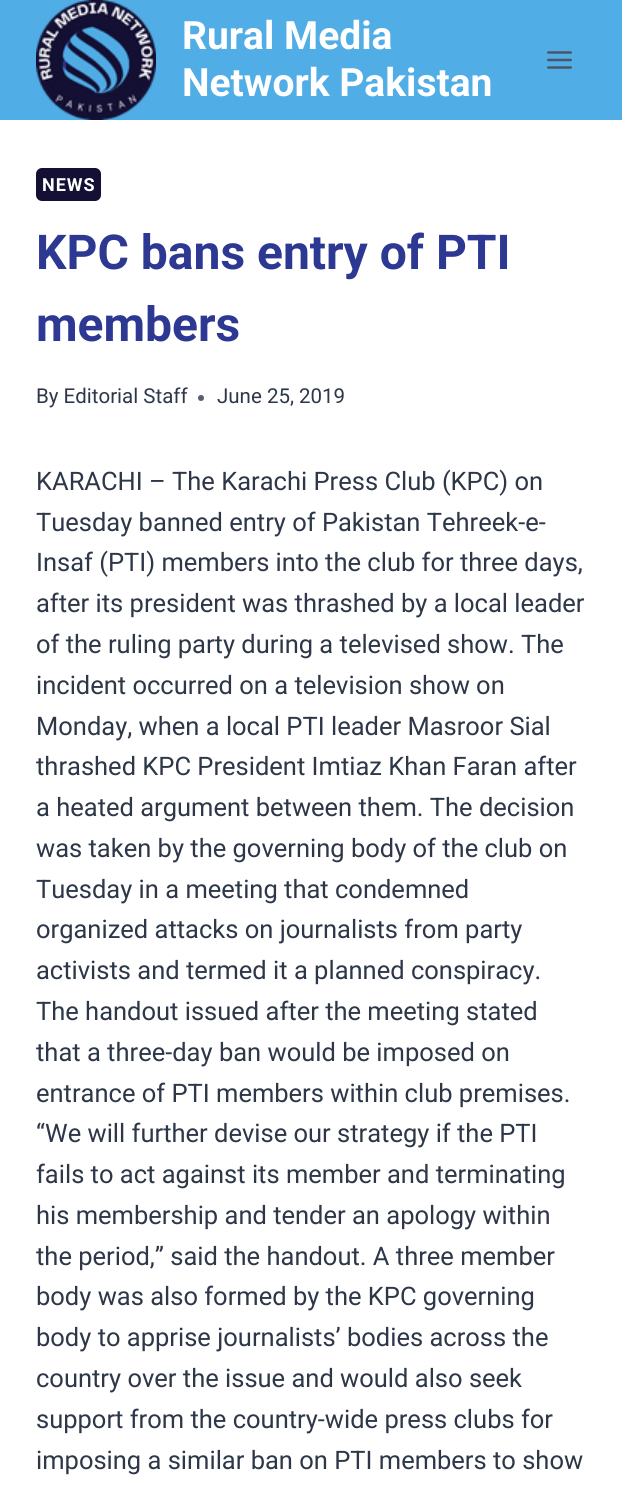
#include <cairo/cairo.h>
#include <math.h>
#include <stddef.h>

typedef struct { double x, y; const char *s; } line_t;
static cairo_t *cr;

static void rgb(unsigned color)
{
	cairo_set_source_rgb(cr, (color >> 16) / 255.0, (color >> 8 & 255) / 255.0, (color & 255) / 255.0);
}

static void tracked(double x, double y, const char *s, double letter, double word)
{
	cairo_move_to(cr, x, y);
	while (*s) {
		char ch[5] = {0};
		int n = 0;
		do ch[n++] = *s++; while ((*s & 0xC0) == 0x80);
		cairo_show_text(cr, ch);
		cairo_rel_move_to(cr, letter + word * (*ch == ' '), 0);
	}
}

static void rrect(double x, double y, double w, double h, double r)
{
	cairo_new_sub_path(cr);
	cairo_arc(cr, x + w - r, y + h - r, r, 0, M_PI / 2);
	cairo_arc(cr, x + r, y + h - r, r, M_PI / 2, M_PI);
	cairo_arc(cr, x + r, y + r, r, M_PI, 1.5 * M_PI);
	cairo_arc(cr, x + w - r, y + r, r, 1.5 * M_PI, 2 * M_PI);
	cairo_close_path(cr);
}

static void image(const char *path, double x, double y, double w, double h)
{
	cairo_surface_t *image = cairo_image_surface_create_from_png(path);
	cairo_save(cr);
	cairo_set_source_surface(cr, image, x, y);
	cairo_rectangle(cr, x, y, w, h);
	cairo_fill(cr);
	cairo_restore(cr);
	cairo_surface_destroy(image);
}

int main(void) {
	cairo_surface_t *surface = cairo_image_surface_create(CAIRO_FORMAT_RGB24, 622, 1496);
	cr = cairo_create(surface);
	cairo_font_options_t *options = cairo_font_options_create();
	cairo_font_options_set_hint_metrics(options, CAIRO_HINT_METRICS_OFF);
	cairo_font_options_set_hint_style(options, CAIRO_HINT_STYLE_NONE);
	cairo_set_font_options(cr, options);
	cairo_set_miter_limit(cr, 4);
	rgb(0xffffff);
	cairo_paint(cr);
	rgb(0x51ade5);
	cairo_rectangle(cr, 0, 0, 622, 120);
	cairo_fill(cr);
	image("img/1.png", 36, 0, 120, 120);
	image("img/2.png", 547, 51, 25, 18);
	rgb(0x141034);
	rrect(36, 168, 65, 33, 6);
	cairo_fill(cr);
	rgb(0x575f6d);
	cairo_arc(cr, 201, 398, 3, 0, 2 * M_PI);
	cairo_fill(cr);
	cairo_select_font_face(cr, "Roboto", CAIRO_FONT_SLANT_NORMAL, CAIRO_FONT_WEIGHT_BOLD);
	cairo_set_font_size(cr, 39);
	rgb(0xffffff);
	cairo_move_to(cr, 182, 49);
	cairo_show_text(cr, "Rural Media");
	cairo_move_to(cr, 182, 96);
	cairo_show_text(cr, "Network Pakistan");
	cairo_set_font_size(cr, 18);
	tracked(42, 191, "NEWS", 1, 0);
	cairo_set_font_size(cr, 48);
	rgb(0x2c3892);
	cairo_move_to(cr, 36, 269);
	cairo_show_text(cr, "KPC bans entry of PTI");
	cairo_move_to(cr, 36, 341);
	cairo_show_text(cr, "members");
	cairo_select_font_face(cr, "Roboto", CAIRO_FONT_SLANT_NORMAL, CAIRO_FONT_WEIGHT_NORMAL);
	cairo_set_font_size(cr, 20.5);
	rgb(0x2d3748);
	cairo_move_to(cr, 36, 403);
	cairo_show_text(cr, "By Editorial Staff");
	cairo_move_to(cr, 217, 403);
	cairo_show_text(cr, "June 25, 2019");
	cairo_set_font_size(cr, 25.5);
	{
		static const line_t items[] = {
			{36, 490, "KARACHI – The Karachi Press Club (KPC) on"},
			{36, 531, "Tuesday banned entry of Pakistan Tehreek-e-"},
			{36, 571, "Insaf (PTI) members into the club for three days,"},
			{36, 612, "after its president was thrashed by a local leader"},
			{36, 653, "of the ruling party during a televised show. The"},
			{36, 694, "incident occurred on a television show on"},
			{36, 735, "Monday, when a local PTI leader Masroor Sial"},
			{36, 775, "thrashed KPC President Imtiaz Khan Faran after"},
			{36, 816, "a heated argument between them. The decision"},
			{36, 857, "was taken by the governing body of the club on"},
			{36, 898, "Tuesday in a meeting that condemned"},
			{36, 938, "organized attacks on journalists from party"},
			{36, 979, "activists and termed it a planned conspiracy."},
			{36, 1020, "The handout issued after the meeting stated"},
			{36, 1061, "that a three-day ban would be imposed on"},
			{36, 1102, "entrance of PTI members within club premises."},
			{36, 1142, "“We will further devise our strategy if the PTI"},
			{36, 1183, "fails to act against its member and terminating"},
			{36, 1224, "his membership and tender an apology within"},
			{36, 1265, "the period,” said the handout. A three member"},
			{36, 1305, "body was also formed by the KPC governing"},
			{36, 1346, "body to apprise journalists’ bodies across the"},
			{36, 1387, "country over the issue and would also seek"},
			{36, 1428, "support from the country-wide press clubs for"},
			{36, 1469, "imposing a similar ban on PTI members to show"},
		};
		for (size_t i = 0; i < sizeof items / sizeof *items; i++) {
			cairo_move_to(cr, items[i].x, items[i].y);
			cairo_show_text(cr, items[i].s);
		}
	}
	cairo_surface_write_to_png(surface, "page.png");
	cairo_font_options_destroy(options);
	cairo_destroy(cr);
	cairo_surface_destroy(surface);
	return 0;
}
